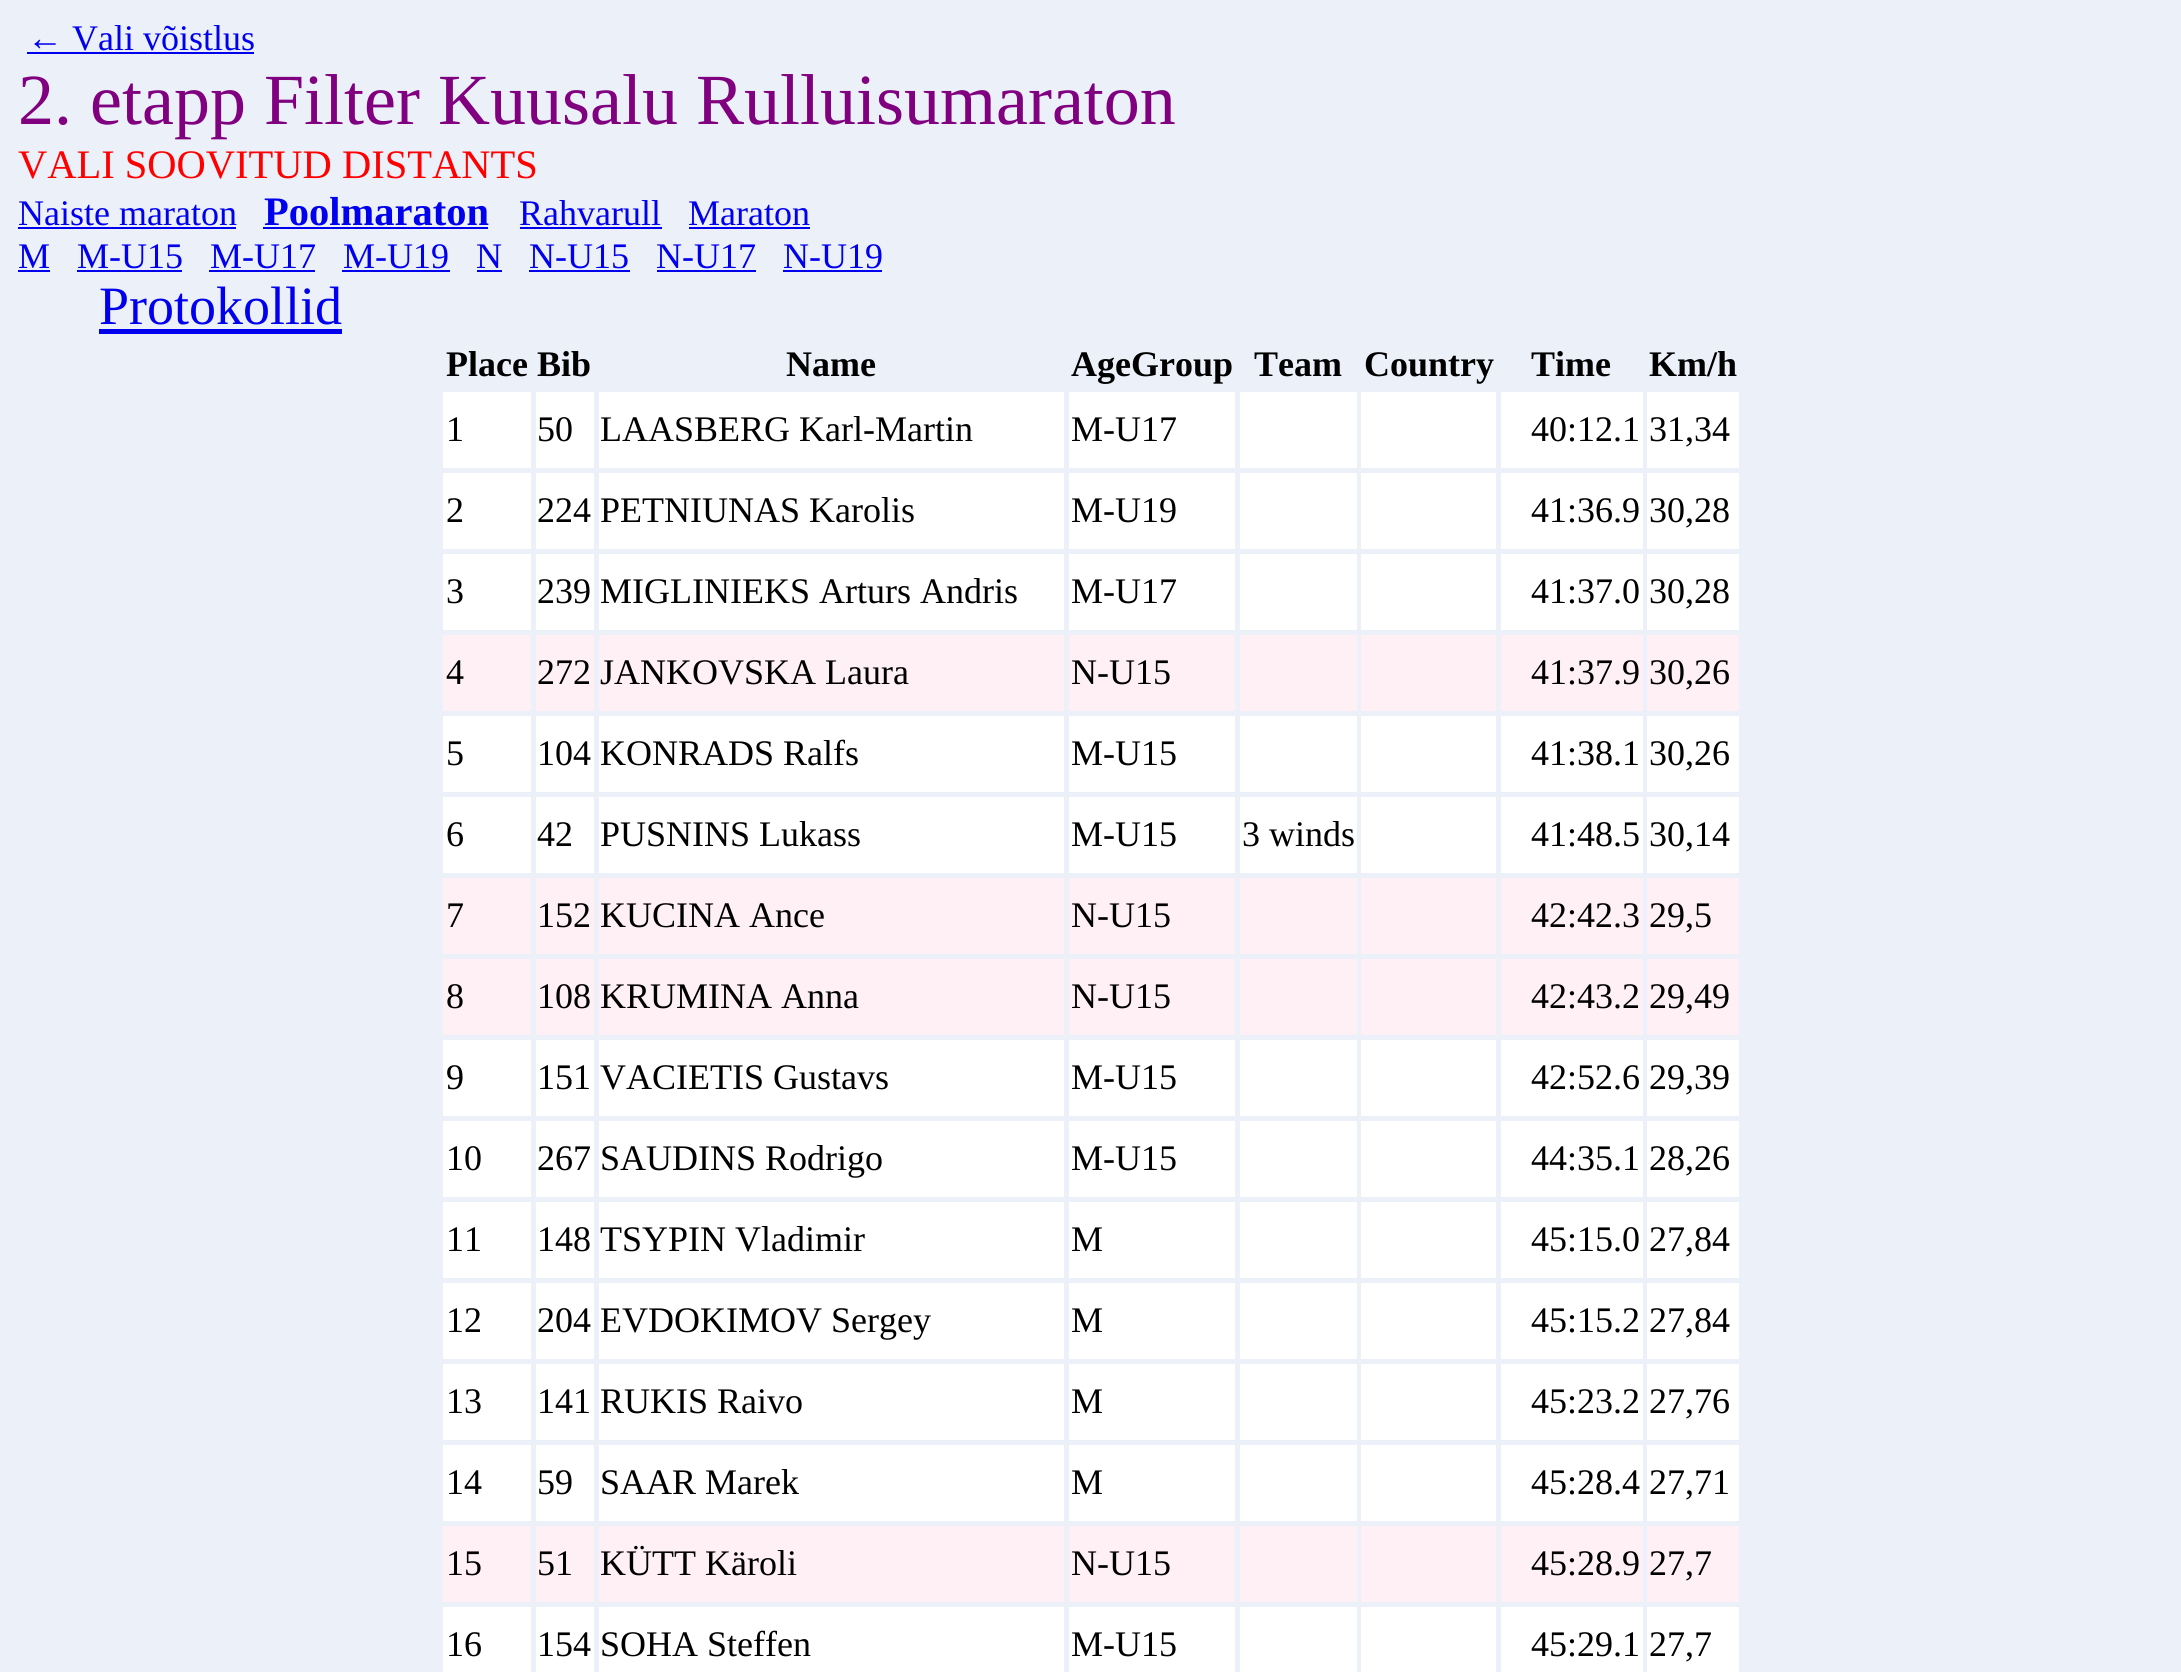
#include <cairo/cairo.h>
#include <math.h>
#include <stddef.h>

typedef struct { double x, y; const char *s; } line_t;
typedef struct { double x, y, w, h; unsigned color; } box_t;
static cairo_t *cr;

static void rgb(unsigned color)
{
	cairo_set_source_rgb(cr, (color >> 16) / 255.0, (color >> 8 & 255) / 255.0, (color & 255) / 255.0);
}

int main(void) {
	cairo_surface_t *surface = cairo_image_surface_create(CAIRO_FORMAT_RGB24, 2181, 1672);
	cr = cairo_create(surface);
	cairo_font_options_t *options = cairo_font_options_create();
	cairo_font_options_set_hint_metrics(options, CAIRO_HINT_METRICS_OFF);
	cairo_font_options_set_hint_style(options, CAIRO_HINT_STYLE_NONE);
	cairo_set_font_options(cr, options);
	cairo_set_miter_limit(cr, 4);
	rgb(0xecf0f9);
	cairo_paint(cr);
	{
		static const box_t items[] = {
			{27, 52, 227, 2, 0x0000ee},
			{18, 227, 218, 2, 0x0000ee},
			{263, 227, 225, 2, 0x0000ee},
			{520, 227, 142, 2, 0x0000ee},
			{689, 227, 121, 2, 0x0000ee},
			{18, 270, 32, 2, 0x0000ee},
			{77, 270, 105, 2, 0x0000ee},
			{209, 270, 106, 2, 0x0000ee},
			{342, 270, 108, 2, 0x0000ee},
			{477, 270, 25, 2, 0x0000ee},
			{529, 270, 101, 2, 0x0000ee},
			{657, 270, 99, 2, 0x0000ee},
			{783, 270, 99, 2, 0x0000ee},
			{99, 329, 243, 5, 0x0000ee},
			{443, 392, 88, 76, 0xffffff},
			{536, 392, 58, 76, 0xffffff},
			{599, 392, 465, 76, 0xffffff},
			{1069, 392, 166, 76, 0xffffff},
			{1240, 392, 117, 76, 0xffffff},
			{1361, 392, 135, 76, 0xffffff},
			{1647, 392, 92, 76, 0xffffff},
			{1501, 392, 142, 76, 0xffffff},
			{599, 473, 465, 76, 0xffffff},
			{1240, 473, 117, 76, 0xffffff},
			{1361, 473, 135, 76, 0xffffff},
			{1647, 473, 92, 76, 0xffffff},
			{443, 473, 88, 76, 0xffffff},
			{536, 473, 58, 76, 0xffffff},
			{1069, 473, 166, 76, 0xffffff},
			{1501, 473, 142, 76, 0xffffff},
			{599, 554, 465, 76, 0xffffff},
			{1240, 554, 117, 76, 0xffffff},
			{1361, 554, 135, 76, 0xffffff},
			{1647, 554, 92, 76, 0xffffff},
			{443, 554, 88, 76, 0xffffff},
			{536, 554, 58, 76, 0xffffff},
			{1069, 554, 166, 76, 0xffffff},
			{1501, 554, 142, 76, 0xffffff},
			{443, 635, 88, 76, 0xfff0f5},
			{599, 635, 465, 76, 0xfff0f5},
			{1240, 635, 117, 76, 0xfff0f5},
			{1361, 635, 135, 76, 0xfff0f5},
			{1647, 635, 92, 76, 0xfff0f5},
			{536, 635, 58, 76, 0xfff0f5},
			{1069, 635, 166, 76, 0xfff0f5},
			{1501, 635, 142, 76, 0xfff0f5},
			{599, 716, 465, 76, 0xffffff},
			{1240, 716, 117, 76, 0xffffff},
			{1361, 716, 135, 76, 0xffffff},
			{1647, 716, 92, 76, 0xffffff},
			{443, 716, 88, 76, 0xffffff},
			{536, 716, 58, 76, 0xffffff},
			{1069, 716, 166, 76, 0xffffff},
			{1501, 716, 142, 76, 0xffffff},
			{443, 797, 88, 76, 0xffffff},
			{536, 797, 58, 76, 0xffffff},
			{599, 797, 465, 76, 0xffffff},
			{1069, 797, 166, 76, 0xffffff},
			{1240, 797, 117, 76, 0xffffff},
			{1361, 797, 135, 76, 0xffffff},
			{1647, 797, 92, 76, 0xffffff},
			{1501, 797, 142, 76, 0xffffff},
			{443, 878, 88, 76, 0xfff0f5},
			{599, 878, 465, 76, 0xfff0f5},
			{1240, 878, 117, 76, 0xfff0f5},
			{1361, 878, 135, 76, 0xfff0f5},
			{1647, 878, 92, 76, 0xfff0f5},
			{536, 878, 58, 76, 0xfff0f5},
			{1069, 878, 166, 76, 0xfff0f5},
			{1501, 878, 142, 76, 0xfff0f5},
			{443, 959, 88, 76, 0xfff0f5},
			{599, 959, 465, 76, 0xfff0f5},
			{1240, 959, 117, 76, 0xfff0f5},
			{1361, 959, 135, 76, 0xfff0f5},
			{1647, 959, 92, 76, 0xfff0f5},
			{536, 959, 58, 76, 0xfff0f5},
			{1069, 959, 166, 76, 0xfff0f5},
			{1501, 959, 142, 76, 0xfff0f5},
			{443, 1040, 88, 76, 0xffffff},
			{599, 1040, 465, 76, 0xffffff},
			{1240, 1040, 117, 76, 0xffffff},
			{1361, 1040, 135, 76, 0xffffff},
			{1647, 1040, 92, 76, 0xffffff},
			{536, 1040, 58, 76, 0xffffff},
			{1069, 1040, 166, 76, 0xffffff},
			{1501, 1040, 142, 76, 0xffffff},
			{599, 1121, 465, 76, 0xffffff},
			{1240, 1121, 117, 76, 0xffffff},
			{1361, 1121, 135, 76, 0xffffff},
			{1647, 1121, 92, 76, 0xffffff},
			{443, 1121, 88, 76, 0xffffff},
			{536, 1121, 58, 76, 0xffffff},
			{1069, 1121, 166, 76, 0xffffff},
			{1501, 1121, 142, 76, 0xffffff},
			{599, 1202, 465, 76, 0xffffff},
			{1240, 1202, 117, 76, 0xffffff},
			{1361, 1202, 135, 76, 0xffffff},
			{1647, 1202, 92, 76, 0xffffff},
			{443, 1202, 88, 76, 0xffffff},
			{536, 1202, 58, 76, 0xffffff},
			{1069, 1202, 166, 76, 0xffffff},
			{1501, 1202, 142, 76, 0xffffff},
			{443, 1283, 88, 76, 0xffffff},
			{599, 1283, 465, 76, 0xffffff},
			{1240, 1283, 117, 76, 0xffffff},
			{1361, 1283, 135, 76, 0xffffff},
			{1647, 1283, 92, 76, 0xffffff},
			{536, 1283, 58, 76, 0xffffff},
			{1069, 1283, 166, 76, 0xffffff},
			{1501, 1283, 142, 76, 0xffffff},
			{443, 1364, 88, 76, 0xffffff},
			{599, 1364, 465, 76, 0xffffff},
			{1240, 1364, 117, 76, 0xffffff},
			{1361, 1364, 135, 76, 0xffffff},
			{1647, 1364, 92, 76, 0xffffff},
			{536, 1364, 58, 76, 0xffffff},
			{1069, 1364, 166, 76, 0xffffff},
			{1501, 1364, 142, 76, 0xffffff},
			{443, 1445, 88, 76, 0xffffff},
			{536, 1445, 58, 76, 0xffffff},
			{599, 1445, 465, 76, 0xffffff},
			{1069, 1445, 166, 76, 0xffffff},
			{1240, 1445, 117, 76, 0xffffff},
			{1361, 1445, 135, 76, 0xffffff},
			{1647, 1445, 92, 76, 0xffffff},
			{1501, 1445, 142, 76, 0xffffff},
			{443, 1526, 88, 76, 0xfff0f5},
			{536, 1526, 58, 76, 0xfff0f5},
			{599, 1526, 465, 76, 0xfff0f5},
			{1069, 1526, 166, 76, 0xfff0f5},
			{1240, 1526, 117, 76, 0xfff0f5},
			{1361, 1526, 135, 76, 0xfff0f5},
			{1647, 1526, 92, 76, 0xfff0f5},
			{1501, 1526, 142, 76, 0xfff0f5},
			{599, 1607, 465, 65, 0xffffff},
			{1240, 1607, 117, 65, 0xffffff},
			{1361, 1607, 135, 65, 0xffffff},
			{1647, 1607, 92, 65, 0xffffff},
			{443, 1607, 88, 65, 0xffffff},
			{536, 1607, 58, 65, 0xffffff},
			{1069, 1607, 166, 65, 0xffffff},
			{1501, 1607, 142, 65, 0xffffff},
		};
		for (size_t i = 0; i < sizeof items / sizeof *items; i++) {
			rgb(items[i].color);
			cairo_rectangle(cr, items[i].x, items[i].y, items[i].w, items[i].h);
			cairo_fill(cr);
		}
	}
	cairo_select_font_face(cr, "Liberation Serif", CAIRO_FONT_SLANT_NORMAL, CAIRO_FONT_WEIGHT_NORMAL);
	cairo_set_font_size(cr, 36);
	rgb(0x0000ee);
	cairo_move_to(cr, 27, 50);
	cairo_show_text(cr, "← Vali võistlus");
	cairo_set_font_size(cr, 72);
	rgb(0x800080);
	cairo_move_to(cr, 18, 124);
	cairo_show_text(cr, "2. etapp Filter Kuusalu Rulluisumaraton");
	cairo_set_font_size(cr, 40.5);
	rgb(0xff0000);
	cairo_move_to(cr, 18, 178);
	cairo_show_text(cr, "VALI SOOVITUD DISTANTS");
	cairo_set_font_size(cr, 36);
	rgb(0x0000ee);
	cairo_move_to(cr, 18, 225);
	cairo_show_text(cr, "Naiste maraton");
	cairo_select_font_face(cr, "Liberation Serif", CAIRO_FONT_SLANT_NORMAL, CAIRO_FONT_WEIGHT_BOLD);
	cairo_set_font_size(cr, 40.5);
	cairo_move_to(cr, 264, 225);
	cairo_show_text(cr, "Poolmaraton");
	cairo_select_font_face(cr, "Liberation Serif", CAIRO_FONT_SLANT_NORMAL, CAIRO_FONT_WEIGHT_NORMAL);
	cairo_set_font_size(cr, 36);
	{
		static const line_t items[] = {
			{519, 225, "Rahvarull"},
			{688, 225, "Maraton"},
			{18, 268, "M"},
			{77, 268, "M-U15"},
			{210, 268, "M-U17"},
			{343, 268, "M-U19"},
			{476, 268, "N"},
			{529, 268, "N-U15"},
			{656, 268, "N-U17"},
			{783, 268, "N-U19"},
		};
		for (size_t i = 0; i < sizeof items / sizeof *items; i++) {
			cairo_move_to(cr, items[i].x, items[i].y);
			cairo_show_text(cr, items[i].s);
		}
	}
	cairo_set_font_size(cr, 54);
	cairo_move_to(cr, 99, 324);
	cairo_show_text(cr, "Protokollid");
	cairo_select_font_face(cr, "Liberation Serif", CAIRO_FONT_SLANT_NORMAL, CAIRO_FONT_WEIGHT_BOLD);
	cairo_set_font_size(cr, 36);
	rgb(0x000000);
	{
		static const line_t items[] = {
			{446, 376, "Place Bib"},
			{786, 376, "Name"},
			{1071, 376, "AgeGroup"},
			{1254, 376, "Team"},
			{1364, 376, "Country"},
			{1531, 376, "Time"},
			{1649, 376, "Km/h"},
		};
		for (size_t i = 0; i < sizeof items / sizeof *items; i++) {
			cairo_move_to(cr, items[i].x, items[i].y);
			cairo_show_text(cr, items[i].s);
		}
	}
	cairo_select_font_face(cr, "Liberation Serif", CAIRO_FONT_SLANT_NORMAL, CAIRO_FONT_WEIGHT_NORMAL);
	{
		static const line_t items[] = {
			{446, 441, "1"},
			{537, 441, "50"},
			{600, 441, "LAASBERG Karl-Martin"},
			{1071, 441, "M-U17"},
			{1531, 441, "40:12.1 31,34"},
			{446, 522, "2"},
			{537, 522, "224 PETNIUNAS Karolis"},
			{1071, 522, "M-U19"},
			{1531, 522, "41:36.9 30,28"},
			{446, 603, "3"},
			{537, 603, "239 MIGLINIEKS Arturs Andris"},
			{1071, 603, "M-U17"},
			{1531, 603, "41:37.0 30,28"},
			{446, 684, "4"},
			{537, 684, "272 JANKOVSKA Laura"},
			{1071, 684, "N-U15"},
			{1531, 684, "41:37.9 30,26"},
			{446, 765, "5"},
			{537, 765, "104 KONRADS Ralfs"},
			{1071, 765, "M-U15"},
			{1531, 765, "41:38.1 30,26"},
			{446, 846, "6"},
			{537, 846, "42"},
			{600, 846, "PUSNINS Lukass"},
			{1071, 846, "M-U15"},
			{1242, 846, "3 winds"},
			{1531, 846, "41:48.5 30,14"},
			{446, 927, "7"},
			{537, 927, "152 KUCINA Ance"},
			{1071, 927, "N-U15"},
			{1531, 927, "42:42.3 29,5"},
			{446, 1008, "8"},
			{537, 1008, "108 KRUMINA Anna"},
			{1071, 1008, "N-U15"},
			{1531, 1008, "42:43.2 29,49"},
			{446, 1089, "9"},
			{537, 1089, "151 VACIETIS Gustavs"},
			{1071, 1089, "M-U15"},
			{1531, 1089, "42:52.6 29,39"},
			{446, 1170, "10"},
			{537, 1170, "267 SAUDINS Rodrigo"},
			{1071, 1170, "M-U15"},
			{1531, 1170, "44:35.1 28,26"},
			{446, 1251, "11"},
			{537, 1251, "148 TSYPIN Vladimir"},
			{1071, 1251, "M"},
			{1531, 1251, "45:15.0 27,84"},
			{446, 1332, "12"},
			{537, 1332, "204 EVDOKIMOV Sergey"},
			{1071, 1332, "M"},
			{1531, 1332, "45:15.2 27,84"},
			{446, 1413, "13"},
			{537, 1413, "141 RUKIS Raivo"},
			{1071, 1413, "M"},
			{1531, 1413, "45:23.2 27,76"},
			{446, 1494, "14"},
			{537, 1494, "59"},
			{600, 1494, "SAAR Marek"},
			{1071, 1494, "M"},
			{1531, 1494, "45:28.4 27,71"},
			{446, 1575, "15"},
			{537, 1575, "51"},
			{600, 1575, "KÜTT Käroli"},
			{1071, 1575, "N-U15"},
			{1531, 1575, "45:28.9 27,7"},
			{446, 1656, "16"},
			{537, 1656, "154 SOHA Steffen"},
			{1071, 1656, "M-U15"},
			{1531, 1656, "45:29.1 27,7"},
		};
		for (size_t i = 0; i < sizeof items / sizeof *items; i++) {
			cairo_move_to(cr, items[i].x, items[i].y);
			cairo_show_text(cr, items[i].s);
		}
	}
	cairo_surface_write_to_png(surface, "page.png");
	cairo_font_options_destroy(options);
	cairo_destroy(cr);
	cairo_surface_destroy(surface);
	return 0;
}
